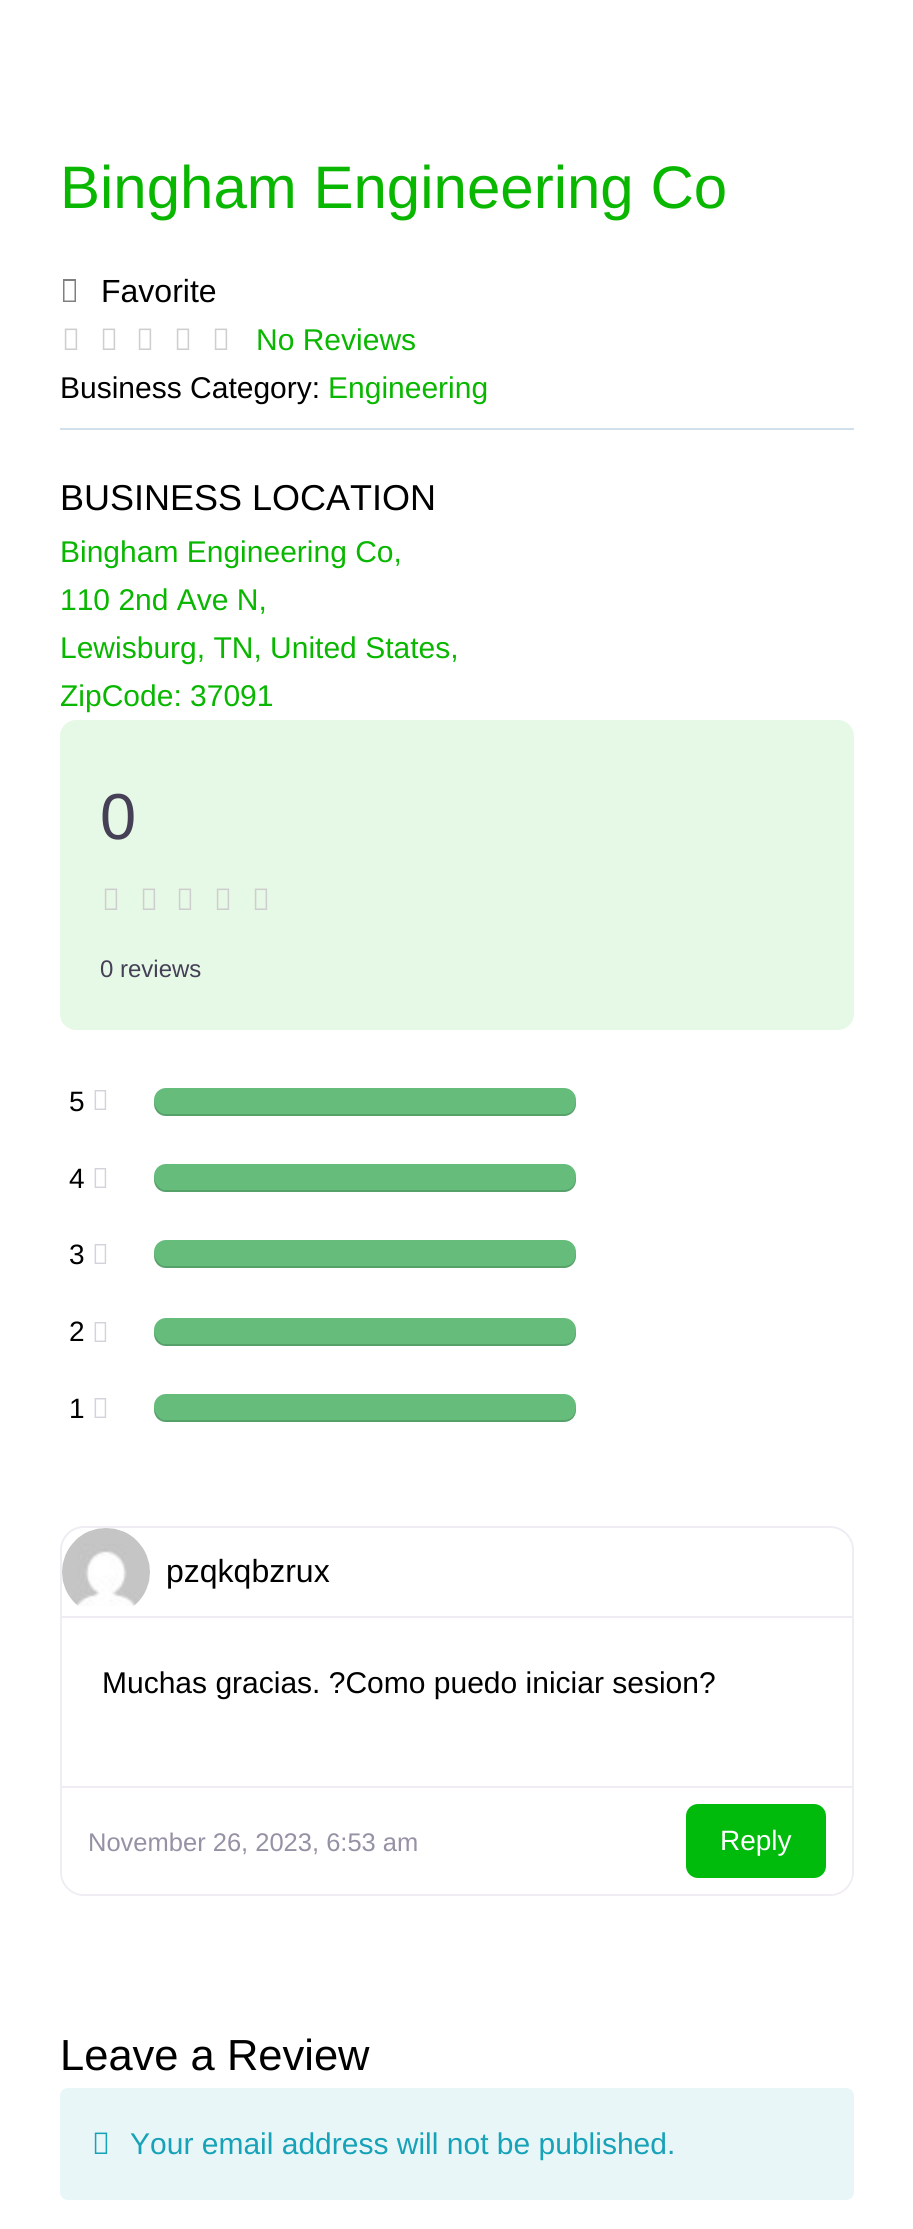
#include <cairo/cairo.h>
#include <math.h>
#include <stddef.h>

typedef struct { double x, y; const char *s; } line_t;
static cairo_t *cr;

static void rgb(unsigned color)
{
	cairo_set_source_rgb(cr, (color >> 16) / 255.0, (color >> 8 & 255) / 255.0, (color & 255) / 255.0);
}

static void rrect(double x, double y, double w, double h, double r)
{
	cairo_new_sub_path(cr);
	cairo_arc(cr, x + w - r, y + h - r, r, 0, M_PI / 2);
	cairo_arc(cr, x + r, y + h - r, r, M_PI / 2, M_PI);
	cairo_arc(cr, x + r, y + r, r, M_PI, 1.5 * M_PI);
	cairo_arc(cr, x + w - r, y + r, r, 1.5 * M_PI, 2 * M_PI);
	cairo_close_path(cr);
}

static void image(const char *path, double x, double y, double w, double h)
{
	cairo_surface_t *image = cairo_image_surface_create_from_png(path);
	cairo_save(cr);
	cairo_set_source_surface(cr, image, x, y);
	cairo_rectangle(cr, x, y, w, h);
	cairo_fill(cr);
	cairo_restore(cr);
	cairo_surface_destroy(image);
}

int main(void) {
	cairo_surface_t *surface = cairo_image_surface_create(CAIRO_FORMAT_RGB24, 913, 2229);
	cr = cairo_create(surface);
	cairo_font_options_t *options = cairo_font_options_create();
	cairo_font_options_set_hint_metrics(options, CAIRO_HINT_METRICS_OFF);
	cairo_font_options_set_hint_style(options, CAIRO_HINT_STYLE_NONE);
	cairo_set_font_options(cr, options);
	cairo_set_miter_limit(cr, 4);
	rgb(0xffffff);
	cairo_paint(cr);
	rgb(0x808080);
	cairo_new_path(cr);
	cairo_move_to(cr, 63, 302);
	cairo_line_to(cr, 63, 279);
	cairo_line_to(cr, 76, 279);
	cairo_line_to(cr, 76, 302);
	cairo_close_path(cr);
	cairo_move_to(cr, 64.5, 300.5);
	cairo_line_to(cr, 74.5, 300.5);
	cairo_line_to(cr, 74.5, 281);
	cairo_line_to(cr, 64.5, 281);
	cairo_close_path(cr);
	cairo_fill(cr);
	image("img/1.png", 64, 328, 14, 22);
	image("img/1.png", 102, 328, 14, 22);
	image("img/1.png", 138, 328, 14, 22);
	image("img/1.png", 176, 328, 14, 22);
	image("img/1.png", 214, 328, 14, 22);
	rgb(0xd2e0eb);
	cairo_rectangle(cr, 60, 428, 794, 2);
	cairo_fill(cr);
	rgb(0xe6f9e7);
	rrect(60, 720, 794, 310, 16);
	cairo_fill(cr);
	image("img/2.png", 104, 888, 14, 22);
	image("img/2.png", 142, 888, 14, 22);
	image("img/2.png", 178, 888, 14, 22);
	image("img/2.png", 216, 888, 14, 22);
	image("img/2.png", 254, 888, 14, 22);
	image("img/3.png", 94, 1090, 13, 20);
	rgb(0x65bc7b);
	rrect(154, 1088, 422, 28, 12);
	cairo_fill(cr);
	cairo_set_source_rgba(cr, 0, 0, 0, 0.15);
	cairo_new_path(cr);
	cairo_move_to(cr, 154, 1101);
	cairo_curve_to(cr, 154, 1109, 157, 1116, 166, 1116);
	cairo_line_to(cr, 564, 1116);
	cairo_curve_to(cr, 571, 1116, 576, 1111, 576, 1104);
	cairo_line_to(cr, 575, 1096);
	cairo_curve_to(cr, 577, 1105, 574, 1114, 564, 1114);
	cairo_line_to(cr, 163, 1114);
	cairo_curve_to(cr, 158, 1112, 155, 1107, 154, 1101);
	cairo_close_path(cr);
	cairo_fill(cr);
	image("img/3.png", 94, 1168, 13, 20);
	rgb(0x65bc7b);
	rrect(154, 1164, 422, 28, 12);
	cairo_fill(cr);
	cairo_set_source_rgba(cr, 0, 0, 0, 0.15);
	cairo_new_path(cr);
	cairo_move_to(cr, 154, 1177);
	cairo_curve_to(cr, 154, 1185, 157, 1192, 166, 1192);
	cairo_line_to(cr, 564, 1192);
	cairo_curve_to(cr, 571, 1192, 576, 1187, 576, 1180);
	cairo_line_to(cr, 575, 1172);
	cairo_curve_to(cr, 577, 1181, 574, 1190, 564, 1190);
	cairo_line_to(cr, 163, 1190);
	cairo_curve_to(cr, 158, 1188, 155, 1183, 154, 1177);
	cairo_close_path(cr);
	cairo_fill(cr);
	image("img/3.png", 94, 1244, 13, 20);
	rgb(0x65bc7b);
	rrect(154, 1240, 422, 28, 12);
	cairo_fill(cr);
	cairo_set_source_rgba(cr, 0, 0, 0, 0.15);
	cairo_new_path(cr);
	cairo_move_to(cr, 154, 1253);
	cairo_curve_to(cr, 154, 1261, 157, 1268, 166, 1268);
	cairo_line_to(cr, 564, 1268);
	cairo_curve_to(cr, 571, 1268, 576, 1263, 576, 1256);
	cairo_line_to(cr, 575, 1248);
	cairo_curve_to(cr, 577, 1257, 574, 1266, 564, 1266);
	cairo_line_to(cr, 163, 1266);
	cairo_curve_to(cr, 158, 1264, 155, 1259, 154, 1253);
	cairo_close_path(cr);
	cairo_fill(cr);
	image("img/3.png", 94, 1322, 13, 20);
	rgb(0x65bc7b);
	rrect(154, 1318, 422, 28, 12);
	cairo_fill(cr);
	cairo_set_source_rgba(cr, 0, 0, 0, 0.15);
	cairo_new_path(cr);
	cairo_move_to(cr, 154, 1331);
	cairo_curve_to(cr, 154, 1339, 157, 1346, 166, 1346);
	cairo_line_to(cr, 564, 1346);
	cairo_curve_to(cr, 571, 1346, 576, 1341, 576, 1334);
	cairo_line_to(cr, 575, 1326);
	cairo_curve_to(cr, 577, 1335, 574, 1344, 564, 1344);
	cairo_line_to(cr, 163, 1344);
	cairo_curve_to(cr, 158, 1342, 155, 1337, 154, 1331);
	cairo_close_path(cr);
	cairo_fill(cr);
	image("img/3.png", 94, 1398, 13, 20);
	rgb(0x65bc7b);
	rrect(154, 1394, 422, 28, 12);
	cairo_fill(cr);
	cairo_set_source_rgba(cr, 0, 0, 0, 0.15);
	cairo_new_path(cr);
	cairo_move_to(cr, 154, 1407);
	cairo_curve_to(cr, 154, 1415, 157, 1422, 166, 1422);
	cairo_line_to(cr, 564, 1422);
	cairo_curve_to(cr, 571, 1422, 576, 1417, 576, 1410);
	cairo_line_to(cr, 575, 1402);
	cairo_curve_to(cr, 577, 1411, 574, 1420, 564, 1420);
	cairo_line_to(cr, 163, 1420);
	cairo_curve_to(cr, 158, 1418, 155, 1413, 154, 1407);
	cairo_close_path(cr);
	cairo_fill(cr);
	rrect(61, 1527, 792, 368, 23);
	rgb(0xefecf3);
	cairo_stroke(cr);
	cairo_rectangle(cr, 62, 1616, 790, 2);
	cairo_fill(cr);
	image("img/4.png", 62, 1528, 88, 78);
	rgb(0xffffff);
	cairo_new_path(cr);
	cairo_move_to(cr, 62, 1786);
	cairo_line_to(cr, 852, 1786);
	cairo_line_to(cr, 852, 1872);
	cairo_curve_to(cr, 852, 1884, 842, 1894, 830, 1894);
	cairo_line_to(cr, 84, 1894);
	cairo_curve_to(cr, 72, 1894, 62, 1884, 62, 1872);
	cairo_close_path(cr);
	cairo_fill(cr);
	rgb(0xefecf3);
	cairo_rectangle(cr, 62, 1786, 790, 2);
	cairo_fill(cr);
	rgb(0x00ba0c);
	rrect(687, 1805, 138, 72, 11);
	cairo_fill_preserve(cr);
	cairo_stroke(cr);
	rgb(0xe8f6f8);
	rrect(60, 2088, 794, 112, 8);
	cairo_fill(cr);
	image("img/5.png", 94, 2132, 14, 22);
	cairo_select_font_face(cr, "Liberation Sans", CAIRO_FONT_SLANT_NORMAL, CAIRO_FONT_WEIGHT_NORMAL);
	cairo_set_font_size(cr, 60);
	rgb(0x09b700);
	cairo_move_to(cr, 60, 208);
	cairo_show_text(cr, "Bingham Engineering Co");
	cairo_set_font_size(cr, 32);
	rgb(0x000000);
	cairo_move_to(cr, 101, 302);
	cairo_show_text(cr, "Favorite");
	cairo_set_font_size(cr, 30);
	rgb(0x09b700);
	cairo_move_to(cr, 256, 350);
	cairo_show_text(cr, "No Reviews");
	rgb(0x000000);
	cairo_move_to(cr, 60, 398);
	cairo_show_text(cr, "Business Category:");
	rgb(0x09b700);
	cairo_move_to(cr, 328, 398);
	cairo_show_text(cr, "Engineering");
	cairo_set_font_size(cr, 36);
	rgb(0x000000);
	cairo_move_to(cr, 60, 510);
	cairo_show_text(cr, "BUSINESS LOCATION");
	cairo_set_font_size(cr, 30);
	rgb(0x09b700);
	{
		static const line_t items[] = {
			{60, 562, "Bingham Engineering Co,"},
			{60, 610, "110 2nd Ave N,"},
			{60, 658, "Lewisburg, TN, United States,"},
			{60, 706, "ZipCode: 37091"},
		};
		for (size_t i = 0; i < sizeof items / sizeof *items; i++) {
			cairo_move_to(cr, items[i].x, items[i].y);
			cairo_show_text(cr, items[i].s);
		}
	}
	cairo_set_font_size(cr, 65);
	rgb(0x454056);
	cairo_move_to(cr, 100, 839);
	cairo_show_text(cr, "0");
	cairo_set_font_size(cr, 24);
	cairo_move_to(cr, 100, 977);
	cairo_show_text(cr, "0 reviews");
	cairo_set_font_size(cr, 28);
	rgb(0x000000);
	{
		static const line_t items[] = {
			{69, 1111, "5"},
			{69, 1188, "4"},
			{69, 1264, "3"},
			{69, 1341, "2"},
			{69, 1418, "1"},
		};
		for (size_t i = 0; i < sizeof items / sizeof *items; i++) {
			cairo_move_to(cr, items[i].x, items[i].y);
			cairo_show_text(cr, items[i].s);
		}
	}
	cairo_set_font_size(cr, 32);
	cairo_move_to(cr, 166, 1582);
	cairo_show_text(cr, "pzqkqbzrux");
	cairo_set_font_size(cr, 30);
	cairo_move_to(cr, 102, 1693);
	cairo_show_text(cr, "Muchas gracias. ?Como puedo iniciar sesion?");
	cairo_set_font_size(cr, 25.5);
	rgb(0x9691a4);
	cairo_move_to(cr, 88, 1851);
	cairo_show_text(cr, "November 26, 2023, 6:53 am");
	cairo_set_font_size(cr, 28);
	rgb(0xffffff);
	cairo_move_to(cr, 720, 1850);
	cairo_show_text(cr, "Reply");
	cairo_set_font_size(cr, 43.5);
	rgb(0x000000);
	cairo_move_to(cr, 60, 2070);
	cairo_show_text(cr, "Leave a Review");
	cairo_set_font_size(cr, 30);
	rgb(0x17a2b8);
	cairo_move_to(cr, 130, 2154);
	cairo_show_text(cr, "Your email address will not be published.");
	cairo_surface_write_to_png(surface, "page.png");
	cairo_font_options_destroy(options);
	cairo_destroy(cr);
	cairo_surface_destroy(surface);
	return 0;
}
